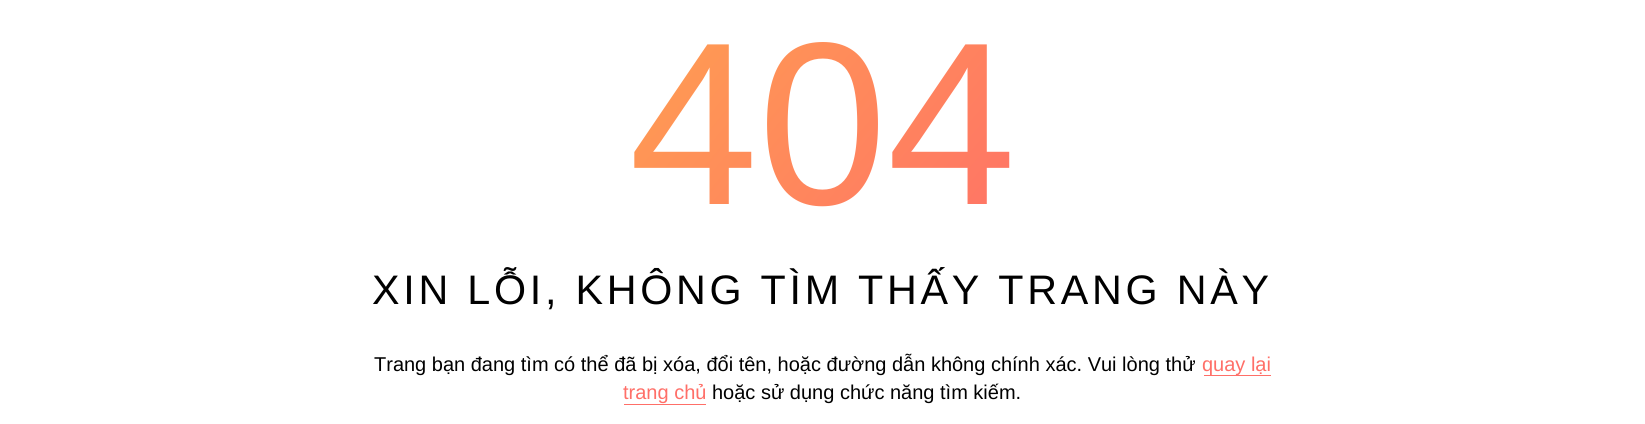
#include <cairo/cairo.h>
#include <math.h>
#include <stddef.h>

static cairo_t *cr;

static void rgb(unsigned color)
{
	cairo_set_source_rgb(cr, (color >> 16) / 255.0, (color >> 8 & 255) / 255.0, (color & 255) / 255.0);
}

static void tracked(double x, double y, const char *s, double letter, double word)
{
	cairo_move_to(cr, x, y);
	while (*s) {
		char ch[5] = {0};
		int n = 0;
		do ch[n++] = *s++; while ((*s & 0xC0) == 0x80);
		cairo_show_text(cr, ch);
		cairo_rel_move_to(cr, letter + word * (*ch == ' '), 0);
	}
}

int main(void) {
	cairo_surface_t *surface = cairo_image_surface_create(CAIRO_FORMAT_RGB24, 1645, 424);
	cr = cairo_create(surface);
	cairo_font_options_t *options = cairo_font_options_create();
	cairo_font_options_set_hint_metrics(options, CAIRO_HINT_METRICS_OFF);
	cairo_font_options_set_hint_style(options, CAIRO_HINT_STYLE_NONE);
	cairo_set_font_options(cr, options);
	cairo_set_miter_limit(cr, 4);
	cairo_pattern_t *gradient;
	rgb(0xffffff);
	cairo_paint(cr);
	rgb(0xff6f68);
	cairo_rectangle(cr, 1204, 375, 67, 1);
	cairo_fill(cr);
	cairo_rectangle(cr, 624, 404, 82, 1);
	cairo_fill(cr);
	cairo_select_font_face(cr, "Liberation Sans", CAIRO_FONT_SLANT_NORMAL, CAIRO_FONT_WEIGHT_NORMAL);
	cairo_set_font_size(cr, 232);
	gradient = cairo_pattern_create_linear(629, -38, 1016, 287);
	cairo_pattern_add_color_stop_rgba(gradient, 0, 1, 0.639, 0.31, 1);
	cairo_pattern_add_color_stop_rgba(gradient, 1, 1, 0.435, 0.408, 1);
	cairo_set_source(cr, gradient);
	cairo_pattern_destroy(gradient);
	cairo_move_to(cr, 629, 204);
	cairo_show_text(cr, "404");
	cairo_set_font_size(cr, 41.25);
	rgb(0x000000);
	tracked(372, 304, "XIN LỖI, KHÔNG TÌM THẤY TRANG NÀY", 3.75, 0);
	cairo_set_font_size(cr, 20);
	cairo_move_to(cr, 374, 371);
	cairo_show_text(cr, "Trang bạn đang tìm có thể đã bị xóa, đổi tên, hoặc đường dẫn không chính xác. Vui lòng thử");
	rgb(0xff6f68);
	cairo_move_to(cr, 1202, 371);
	cairo_show_text(cr, "quay lại");
	cairo_move_to(cr, 623, 399);
	cairo_show_text(cr, "trang chủ");
	rgb(0x000000);
	cairo_move_to(cr, 712, 399);
	cairo_show_text(cr, "hoặc sử dụng chức năng tìm kiếm.");
	cairo_surface_write_to_png(surface, "page.png");
	cairo_font_options_destroy(options);
	cairo_destroy(cr);
	cairo_surface_destroy(surface);
	return 0;
}
